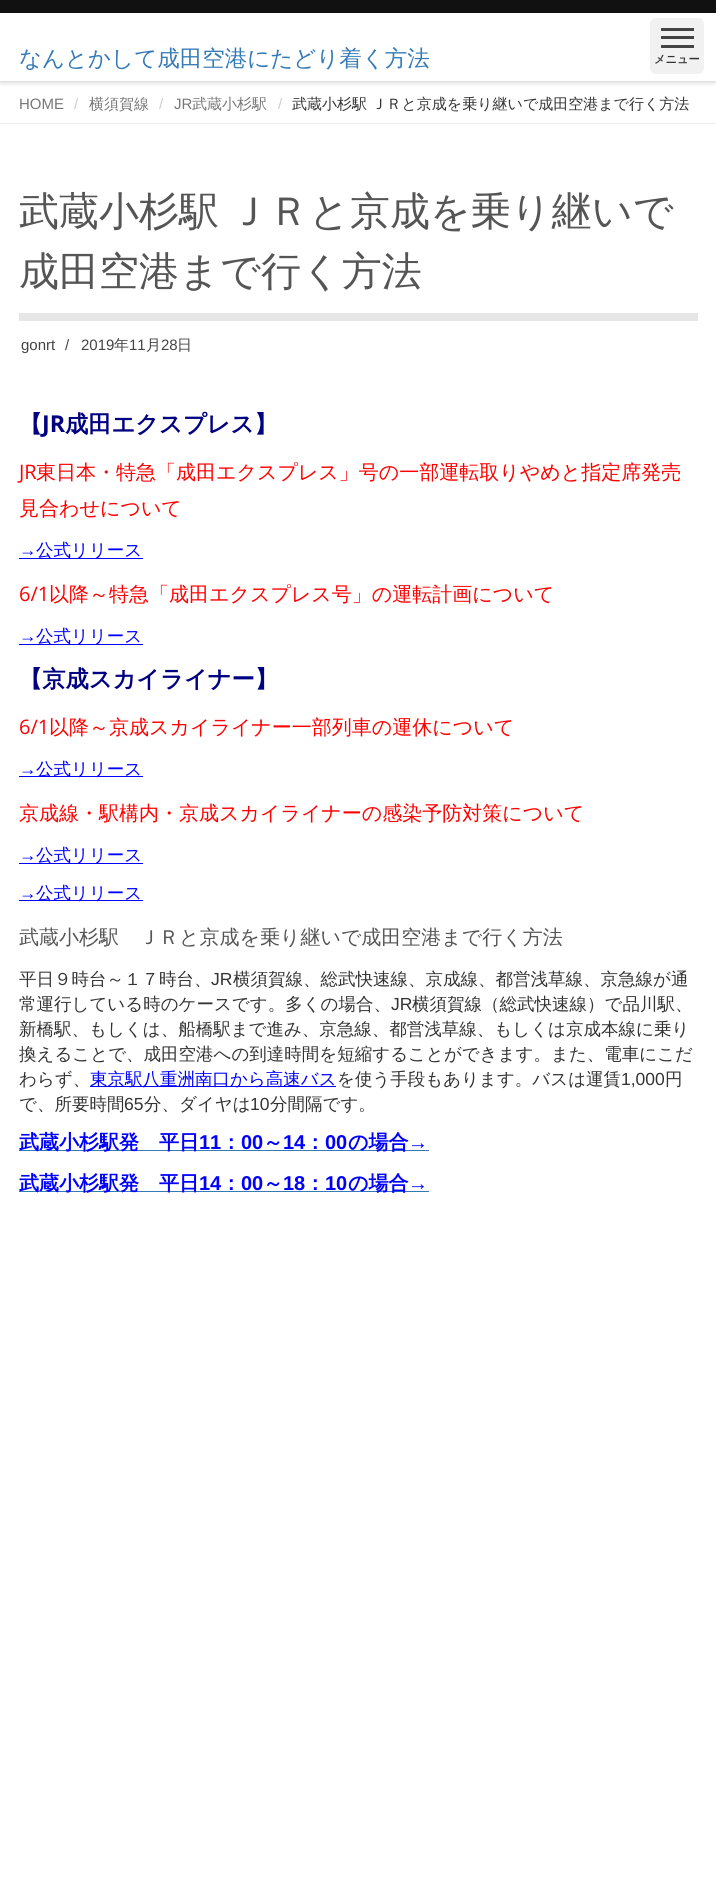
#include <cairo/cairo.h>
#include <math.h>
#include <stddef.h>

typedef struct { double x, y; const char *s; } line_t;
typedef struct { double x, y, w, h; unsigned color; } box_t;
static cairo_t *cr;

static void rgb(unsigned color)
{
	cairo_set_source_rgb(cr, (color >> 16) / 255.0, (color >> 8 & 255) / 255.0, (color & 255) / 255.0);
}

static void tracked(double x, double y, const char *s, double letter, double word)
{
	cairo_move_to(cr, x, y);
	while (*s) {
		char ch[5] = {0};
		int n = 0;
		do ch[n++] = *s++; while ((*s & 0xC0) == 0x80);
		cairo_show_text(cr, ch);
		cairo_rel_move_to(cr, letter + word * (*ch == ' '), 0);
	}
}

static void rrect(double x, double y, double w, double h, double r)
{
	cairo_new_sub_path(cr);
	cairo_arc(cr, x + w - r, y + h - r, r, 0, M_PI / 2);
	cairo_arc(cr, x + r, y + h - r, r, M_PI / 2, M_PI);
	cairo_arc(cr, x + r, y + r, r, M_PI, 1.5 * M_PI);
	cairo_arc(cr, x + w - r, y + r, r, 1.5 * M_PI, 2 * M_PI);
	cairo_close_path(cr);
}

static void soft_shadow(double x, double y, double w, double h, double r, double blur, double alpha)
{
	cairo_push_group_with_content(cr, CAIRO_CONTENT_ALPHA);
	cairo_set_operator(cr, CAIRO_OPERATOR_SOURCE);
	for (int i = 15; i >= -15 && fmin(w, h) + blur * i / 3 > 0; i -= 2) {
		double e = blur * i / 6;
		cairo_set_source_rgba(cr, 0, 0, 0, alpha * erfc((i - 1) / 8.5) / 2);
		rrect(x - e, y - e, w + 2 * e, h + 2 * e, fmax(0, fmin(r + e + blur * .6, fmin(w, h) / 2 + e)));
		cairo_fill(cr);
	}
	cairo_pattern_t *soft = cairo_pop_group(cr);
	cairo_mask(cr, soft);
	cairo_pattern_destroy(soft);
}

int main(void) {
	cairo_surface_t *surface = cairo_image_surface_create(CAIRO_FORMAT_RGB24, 716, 1900);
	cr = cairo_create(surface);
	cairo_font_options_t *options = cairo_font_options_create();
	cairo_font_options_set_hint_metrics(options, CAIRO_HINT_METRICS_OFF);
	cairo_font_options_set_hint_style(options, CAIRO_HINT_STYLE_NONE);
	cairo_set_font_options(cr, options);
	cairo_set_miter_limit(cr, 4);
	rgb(0xffffff);
	cairo_paint(cr);
	cairo_save(cr);
	cairo_rectangle(cr, 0, 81, 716, 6);
	cairo_clip(cr);
	rgb(0xbbbbbb);
	soft_shadow(0, 0, 716, 81, 0, 3, 1);
	cairo_restore(cr);
	rgb(0x111111);
	cairo_rectangle(cr, 0, 0, 716, 13);
	cairo_fill(cr);
	rgb(0xf1f1f1);
	rrect(650, 18, 54, 56, 6);
	cairo_fill(cr);
	{
		static const box_t items[] = {
			{661, 36, 33, 3, 0x444444},
			{661, 28, 33, 3, 0x444444},
			{661, 45, 33, 3, 0x444444},
			{0, 123, 716, 1, 0xeeeeee},
			{19, 313, 679, 8, 0xe6e6e6},
			{19, 558, 124, 1, 0x0000ff},
			{19, 644, 124, 1, 0x0000ff},
			{19, 776, 124, 1, 0x0000ff},
			{19, 863, 124, 1, 0x0000ff},
			{19, 900, 124, 1, 0x0000ff},
			{90, 1086, 246, 1, 0x0000ff},
			{19, 1150, 410, 1, 0x337ab7},
			{19, 1191, 410, 1, 0x337ab7},
		};
		for (size_t i = 0; i < sizeof items / sizeof *items; i++) {
			rgb(items[i].color);
			cairo_rectangle(cr, items[i].x, items[i].y, items[i].w, items[i].h);
			cairo_fill(cr);
		}
	}
	cairo_select_font_face(cr, "WenQuanYi Zen Hei Medium", CAIRO_FONT_SLANT_NORMAL, CAIRO_FONT_WEIGHT_NORMAL);
	cairo_set_font_size(cr, 22.5);
	cairo_move_to(cr, 19, 66);
	cairo_show_text(cr, "なんとかして成田空港にたどり着く方法");
	cairo_select_font_face(cr, "WenQuanYi Zen Hei", CAIRO_FONT_SLANT_NORMAL, CAIRO_FONT_WEIGHT_BOLD);
	cairo_set_font_size(cr, 11.25);
	rgb(0x333333);
	cairo_move_to(cr, 654, 63);
	cairo_show_text(cr, "メニュー");
	cairo_select_font_face(cr, "Liberation Sans", CAIRO_FONT_SLANT_NORMAL, CAIRO_FONT_WEIGHT_NORMAL);
	cairo_set_font_size(cr, 15);
	rgb(0x777777);
	cairo_move_to(cr, 19, 109);
	cairo_show_text(cr, "HOME");
	rgb(0xcccccc);
	cairo_move_to(cr, 74, 109);
	cairo_show_text(cr, "/");
	cairo_select_font_face(cr, "WenQuanYi Zen Hei Medium", CAIRO_FONT_SLANT_NORMAL, CAIRO_FONT_WEIGHT_NORMAL);
	rgb(0x777777);
	cairo_move_to(cr, 89, 109);
	cairo_show_text(cr, "横須賀線");
	cairo_select_font_face(cr, "Liberation Sans", CAIRO_FONT_SLANT_NORMAL, CAIRO_FONT_WEIGHT_NORMAL);
	rgb(0xcccccc);
	cairo_move_to(cr, 159, 109);
	cairo_show_text(cr, "/");
	rgb(0x777777);
	cairo_move_to(cr, 174, 109);
	cairo_show_text(cr, "JR");
	cairo_select_font_face(cr, "WenQuanYi Zen Hei Medium", CAIRO_FONT_SLANT_NORMAL, CAIRO_FONT_WEIGHT_NORMAL);
	cairo_move_to(cr, 192, 109);
	cairo_show_text(cr, "武蔵小杉駅");
	cairo_select_font_face(cr, "Liberation Sans", CAIRO_FONT_SLANT_NORMAL, CAIRO_FONT_WEIGHT_NORMAL);
	rgb(0xcccccc);
	cairo_move_to(cr, 278, 109);
	cairo_show_text(cr, "/");
	cairo_select_font_face(cr, "WenQuanYi Zen Hei Medium", CAIRO_FONT_SLANT_NORMAL, CAIRO_FONT_WEIGHT_NORMAL);
	rgb(0x333333);
	cairo_move_to(cr, 292, 109);
	cairo_show_text(cr, "武蔵小杉駅 ＪＲと京成を乗り継いで成田空港まで行く方法");
	cairo_set_font_size(cr, 40);
	rgb(0x555555);
	tracked(19, 225, "武蔵小杉駅 ＪＲと京成を乗り継いで", 0, -2);
	cairo_move_to(cr, 19, 285);
	cairo_show_text(cr, "成田空港まで行く方法");
	cairo_select_font_face(cr, "Liberation Sans", CAIRO_FONT_SLANT_NORMAL, CAIRO_FONT_WEIGHT_NORMAL);
	cairo_set_font_size(cr, 15);
	rgb(0x444444);
	{
		static const line_t items[] = {
			{21, 350, "gonrt"},
			{65, 350, "/"},
			{81, 350, "2019"},
		};
		for (size_t i = 0; i < sizeof items / sizeof *items; i++) {
			cairo_move_to(cr, items[i].x, items[i].y);
			cairo_show_text(cr, items[i].s);
		}
	}
	cairo_select_font_face(cr, "WenQuanYi Zen Hei Medium", CAIRO_FONT_SLANT_NORMAL, CAIRO_FONT_WEIGHT_NORMAL);
	cairo_move_to(cr, 114, 350);
	cairo_show_text(cr, "年");
	cairo_select_font_face(cr, "Liberation Sans", CAIRO_FONT_SLANT_NORMAL, CAIRO_FONT_WEIGHT_NORMAL);
	cairo_move_to(cr, 129, 350);
	cairo_show_text(cr, "11");
	cairo_select_font_face(cr, "WenQuanYi Zen Hei Medium", CAIRO_FONT_SLANT_NORMAL, CAIRO_FONT_WEIGHT_NORMAL);
	cairo_move_to(cr, 146, 350);
	cairo_show_text(cr, "月");
	cairo_select_font_face(cr, "Liberation Sans", CAIRO_FONT_SLANT_NORMAL, CAIRO_FONT_WEIGHT_NORMAL);
	cairo_move_to(cr, 161, 350);
	cairo_show_text(cr, "28");
	cairo_select_font_face(cr, "WenQuanYi Zen Hei Medium", CAIRO_FONT_SLANT_NORMAL, CAIRO_FONT_WEIGHT_NORMAL);
	cairo_move_to(cr, 177, 350);
	cairo_show_text(cr, "日");
	cairo_select_font_face(cr, "WenQuanYi Zen Hei", CAIRO_FONT_SLANT_NORMAL, CAIRO_FONT_WEIGHT_BOLD);
	cairo_set_font_size(cr, 23.25);
	rgb(0x000080);
	cairo_move_to(cr, 19, 432);
	cairo_show_text(cr, "【");
	cairo_select_font_face(cr, "Open Sans", CAIRO_FONT_SLANT_NORMAL, CAIRO_FONT_WEIGHT_BOLD);
	cairo_move_to(cr, 42, 432);
	cairo_show_text(cr, "JR");
	cairo_select_font_face(cr, "WenQuanYi Zen Hei", CAIRO_FONT_SLANT_NORMAL, CAIRO_FONT_WEIGHT_BOLD);
	cairo_move_to(cr, 65, 432);
	cairo_show_text(cr, "成田エクスプレス】");
	cairo_select_font_face(cr, "Open Sans", CAIRO_FONT_SLANT_NORMAL, CAIRO_FONT_WEIGHT_NORMAL);
	cairo_set_font_size(cr, 20);
	rgb(0xff0000);
	cairo_move_to(cr, 19, 479);
	cairo_show_text(cr, "JR");
	cairo_select_font_face(cr, "WenQuanYi Zen Hei Medium", CAIRO_FONT_SLANT_NORMAL, CAIRO_FONT_WEIGHT_NORMAL);
	cairo_move_to(cr, 36, 479);
	cairo_show_text(cr, "東日本・特急「成田エクスプレス」号の一部運転取りやめと指定席発売");
	cairo_move_to(cr, 19, 515);
	cairo_show_text(cr, "見合わせについて");
	cairo_select_font_face(cr, "Liberation Sans", CAIRO_FONT_SLANT_NORMAL, CAIRO_FONT_WEIGHT_NORMAL);
	cairo_set_font_size(cr, 17.5);
	rgb(0x0000ff);
	cairo_move_to(cr, 19, 556);
	cairo_show_text(cr, "→");
	cairo_select_font_face(cr, "WenQuanYi Zen Hei Medium", CAIRO_FONT_SLANT_NORMAL, CAIRO_FONT_WEIGHT_NORMAL);
	cairo_move_to(cr, 36, 556);
	cairo_show_text(cr, "公式リリース");
	cairo_select_font_face(cr, "Open Sans", CAIRO_FONT_SLANT_NORMAL, CAIRO_FONT_WEIGHT_NORMAL);
	cairo_set_font_size(cr, 20);
	rgb(0xff0000);
	cairo_move_to(cr, 19, 601);
	cairo_show_text(cr, "6/1");
	cairo_select_font_face(cr, "WenQuanYi Zen Hei Medium", CAIRO_FONT_SLANT_NORMAL, CAIRO_FONT_WEIGHT_NORMAL);
	cairo_move_to(cr, 49, 601);
	cairo_show_text(cr, "以降～特急「成田エクスプレス号」の運転計画について");
	cairo_select_font_face(cr, "Liberation Sans", CAIRO_FONT_SLANT_NORMAL, CAIRO_FONT_WEIGHT_NORMAL);
	cairo_set_font_size(cr, 17.5);
	rgb(0x0000ff);
	cairo_move_to(cr, 19, 642);
	cairo_show_text(cr, "→");
	cairo_select_font_face(cr, "WenQuanYi Zen Hei Medium", CAIRO_FONT_SLANT_NORMAL, CAIRO_FONT_WEIGHT_NORMAL);
	cairo_move_to(cr, 36, 642);
	cairo_show_text(cr, "公式リリース");
	cairo_select_font_face(cr, "WenQuanYi Zen Hei", CAIRO_FONT_SLANT_NORMAL, CAIRO_FONT_WEIGHT_BOLD);
	cairo_set_font_size(cr, 23.25);
	rgb(0x000080);
	cairo_move_to(cr, 19, 687);
	cairo_show_text(cr, "【京成スカイライナー】");
	cairo_select_font_face(cr, "Open Sans", CAIRO_FONT_SLANT_NORMAL, CAIRO_FONT_WEIGHT_NORMAL);
	cairo_set_font_size(cr, 20);
	rgb(0xff0000);
	cairo_move_to(cr, 19, 734);
	cairo_show_text(cr, "6/1");
	cairo_select_font_face(cr, "WenQuanYi Zen Hei Medium", CAIRO_FONT_SLANT_NORMAL, CAIRO_FONT_WEIGHT_NORMAL);
	cairo_move_to(cr, 49, 734);
	cairo_show_text(cr, "以降～京成スカイライナー一部列車の運休について");
	cairo_select_font_face(cr, "Liberation Sans", CAIRO_FONT_SLANT_NORMAL, CAIRO_FONT_WEIGHT_NORMAL);
	cairo_set_font_size(cr, 17.5);
	rgb(0x0000ff);
	cairo_move_to(cr, 19, 775);
	cairo_show_text(cr, "→");
	cairo_select_font_face(cr, "WenQuanYi Zen Hei Medium", CAIRO_FONT_SLANT_NORMAL, CAIRO_FONT_WEIGHT_NORMAL);
	cairo_move_to(cr, 36, 775);
	cairo_show_text(cr, "公式リリース");
	cairo_set_font_size(cr, 20);
	rgb(0xff0000);
	cairo_move_to(cr, 19, 820);
	cairo_show_text(cr, "京成線・駅構内・京成スカイライナーの感染予防対策について");
	cairo_select_font_face(cr, "Liberation Sans", CAIRO_FONT_SLANT_NORMAL, CAIRO_FONT_WEIGHT_NORMAL);
	cairo_set_font_size(cr, 17.5);
	rgb(0x0000ff);
	cairo_move_to(cr, 19, 861);
	cairo_show_text(cr, "→");
	cairo_select_font_face(cr, "WenQuanYi Zen Hei Medium", CAIRO_FONT_SLANT_NORMAL, CAIRO_FONT_WEIGHT_NORMAL);
	cairo_move_to(cr, 36, 861);
	cairo_show_text(cr, "公式リリース");
	cairo_select_font_face(cr, "Liberation Sans", CAIRO_FONT_SLANT_NORMAL, CAIRO_FONT_WEIGHT_NORMAL);
	cairo_move_to(cr, 19, 899);
	cairo_show_text(cr, "→");
	cairo_select_font_face(cr, "WenQuanYi Zen Hei Medium", CAIRO_FONT_SLANT_NORMAL, CAIRO_FONT_WEIGHT_NORMAL);
	cairo_move_to(cr, 36, 899);
	cairo_show_text(cr, "公式リリース");
	cairo_set_font_size(cr, 20);
	rgb(0x555555);
	cairo_move_to(cr, 19, 944);
	cairo_show_text(cr, "武蔵小杉駅　ＪＲと京成を乗り継いで成田空港まで行く方法");
	cairo_set_font_size(cr, 17.5);
	rgb(0x333333);
	cairo_move_to(cr, 19, 985);
	cairo_show_text(cr, "平日９時台～１７時台、");
	cairo_select_font_face(cr, "Liberation Sans", CAIRO_FONT_SLANT_NORMAL, CAIRO_FONT_WEIGHT_NORMAL);
	cairo_move_to(cr, 211, 985);
	cairo_show_text(cr, "JR");
	cairo_select_font_face(cr, "WenQuanYi Zen Hei Medium", CAIRO_FONT_SLANT_NORMAL, CAIRO_FONT_WEIGHT_NORMAL);
	cairo_move_to(cr, 233, 985);
	cairo_show_text(cr, "横須賀線、総武快速線、京成線、都営浅草線、京急線が通");
	cairo_move_to(cr, 19, 1010);
	cairo_show_text(cr, "常運行している時のケースです。多くの場合、");
	cairo_select_font_face(cr, "Liberation Sans", CAIRO_FONT_SLANT_NORMAL, CAIRO_FONT_WEIGHT_NORMAL);
	cairo_move_to(cr, 391, 1010);
	cairo_show_text(cr, "JR");
	cairo_select_font_face(cr, "WenQuanYi Zen Hei Medium", CAIRO_FONT_SLANT_NORMAL, CAIRO_FONT_WEIGHT_NORMAL);
	{
		static const line_t items[] = {
			{412, 1010, "横須賀線（総武快速線）で品川駅、"},
			{19, 1035, "新橋駅、もしくは、船橋駅まで進み、京急線、都営浅草線、もしくは京成本線に乗り"},
			{19, 1060, "換えることで、成田空港への到達時間を短縮することができます。また、電車にこだ"},
			{19, 1085, "わらず、"},
		};
		for (size_t i = 0; i < sizeof items / sizeof *items; i++) {
			cairo_move_to(cr, items[i].x, items[i].y);
			cairo_show_text(cr, items[i].s);
		}
	}
	rgb(0x0000ff);
	cairo_move_to(cr, 90, 1085);
	cairo_show_text(cr, "東京駅八重洲南口から高速バス");
	rgb(0x333333);
	cairo_move_to(cr, 337, 1085);
	cairo_show_text(cr, "を使う手段もあります。バスは運賃");
	cairo_select_font_face(cr, "Liberation Sans", CAIRO_FONT_SLANT_NORMAL, CAIRO_FONT_WEIGHT_NORMAL);
	cairo_move_to(cr, 621, 1085);
	cairo_show_text(cr, "1,000");
	cairo_select_font_face(cr, "WenQuanYi Zen Hei Medium", CAIRO_FONT_SLANT_NORMAL, CAIRO_FONT_WEIGHT_NORMAL);
	cairo_move_to(cr, 665, 1085);
	cairo_show_text(cr, "円");
	cairo_move_to(cr, 19, 1110);
	cairo_show_text(cr, "で、所要時間");
	cairo_select_font_face(cr, "Liberation Sans", CAIRO_FONT_SLANT_NORMAL, CAIRO_FONT_WEIGHT_NORMAL);
	cairo_move_to(cr, 124, 1110);
	cairo_show_text(cr, "65");
	cairo_select_font_face(cr, "WenQuanYi Zen Hei Medium", CAIRO_FONT_SLANT_NORMAL, CAIRO_FONT_WEIGHT_NORMAL);
	cairo_move_to(cr, 144, 1110);
	cairo_show_text(cr, "分、ダイヤは");
	cairo_select_font_face(cr, "Liberation Sans", CAIRO_FONT_SLANT_NORMAL, CAIRO_FONT_WEIGHT_NORMAL);
	cairo_move_to(cr, 250, 1110);
	cairo_show_text(cr, "10");
	cairo_select_font_face(cr, "WenQuanYi Zen Hei Medium", CAIRO_FONT_SLANT_NORMAL, CAIRO_FONT_WEIGHT_NORMAL);
	cairo_move_to(cr, 270, 1110);
	cairo_show_text(cr, "分間隔です。");
	cairo_select_font_face(cr, "WenQuanYi Zen Hei", CAIRO_FONT_SLANT_NORMAL, CAIRO_FONT_WEIGHT_BOLD);
	cairo_set_font_size(cr, 20);
	rgb(0x0000ff);
	cairo_move_to(cr, 19, 1149);
	cairo_show_text(cr, "武蔵小杉駅発　平日");
	cairo_select_font_face(cr, "Liberation Sans", CAIRO_FONT_SLANT_NORMAL, CAIRO_FONT_WEIGHT_BOLD);
	cairo_move_to(cr, 199, 1149);
	cairo_show_text(cr, "11");
	cairo_select_font_face(cr, "WenQuanYi Zen Hei", CAIRO_FONT_SLANT_NORMAL, CAIRO_FONT_WEIGHT_BOLD);
	cairo_move_to(cr, 221, 1149);
	cairo_show_text(cr, "：");
	cairo_select_font_face(cr, "Liberation Sans", CAIRO_FONT_SLANT_NORMAL, CAIRO_FONT_WEIGHT_BOLD);
	cairo_move_to(cr, 241, 1149);
	cairo_show_text(cr, "00");
	cairo_select_font_face(cr, "WenQuanYi Zen Hei", CAIRO_FONT_SLANT_NORMAL, CAIRO_FONT_WEIGHT_BOLD);
	cairo_move_to(cr, 263, 1149);
	cairo_show_text(cr, "～");
	cairo_select_font_face(cr, "Liberation Sans", CAIRO_FONT_SLANT_NORMAL, CAIRO_FONT_WEIGHT_BOLD);
	cairo_move_to(cr, 283, 1149);
	cairo_show_text(cr, "14");
	cairo_select_font_face(cr, "WenQuanYi Zen Hei", CAIRO_FONT_SLANT_NORMAL, CAIRO_FONT_WEIGHT_BOLD);
	cairo_move_to(cr, 305, 1149);
	cairo_show_text(cr, "：");
	cairo_select_font_face(cr, "Liberation Sans", CAIRO_FONT_SLANT_NORMAL, CAIRO_FONT_WEIGHT_BOLD);
	cairo_move_to(cr, 325, 1149);
	cairo_show_text(cr, "00");
	cairo_select_font_face(cr, "WenQuanYi Zen Hei", CAIRO_FONT_SLANT_NORMAL, CAIRO_FONT_WEIGHT_BOLD);
	cairo_move_to(cr, 348, 1149);
	cairo_show_text(cr, "の場合");
	cairo_select_font_face(cr, "Liberation Sans", CAIRO_FONT_SLANT_NORMAL, CAIRO_FONT_WEIGHT_BOLD);
	cairo_move_to(cr, 408, 1149);
	cairo_show_text(cr, "→");
	cairo_select_font_face(cr, "WenQuanYi Zen Hei", CAIRO_FONT_SLANT_NORMAL, CAIRO_FONT_WEIGHT_BOLD);
	cairo_move_to(cr, 19, 1190);
	cairo_show_text(cr, "武蔵小杉駅発　平日");
	cairo_select_font_face(cr, "Liberation Sans", CAIRO_FONT_SLANT_NORMAL, CAIRO_FONT_WEIGHT_BOLD);
	cairo_move_to(cr, 199, 1190);
	cairo_show_text(cr, "14");
	cairo_select_font_face(cr, "WenQuanYi Zen Hei", CAIRO_FONT_SLANT_NORMAL, CAIRO_FONT_WEIGHT_BOLD);
	cairo_move_to(cr, 221, 1190);
	cairo_show_text(cr, "：");
	cairo_select_font_face(cr, "Liberation Sans", CAIRO_FONT_SLANT_NORMAL, CAIRO_FONT_WEIGHT_BOLD);
	cairo_move_to(cr, 241, 1190);
	cairo_show_text(cr, "00");
	cairo_select_font_face(cr, "WenQuanYi Zen Hei", CAIRO_FONT_SLANT_NORMAL, CAIRO_FONT_WEIGHT_BOLD);
	cairo_move_to(cr, 263, 1190);
	cairo_show_text(cr, "～");
	cairo_select_font_face(cr, "Liberation Sans", CAIRO_FONT_SLANT_NORMAL, CAIRO_FONT_WEIGHT_BOLD);
	cairo_move_to(cr, 283, 1190);
	cairo_show_text(cr, "18");
	cairo_select_font_face(cr, "WenQuanYi Zen Hei", CAIRO_FONT_SLANT_NORMAL, CAIRO_FONT_WEIGHT_BOLD);
	cairo_move_to(cr, 305, 1190);
	cairo_show_text(cr, "：");
	cairo_select_font_face(cr, "Liberation Sans", CAIRO_FONT_SLANT_NORMAL, CAIRO_FONT_WEIGHT_BOLD);
	cairo_move_to(cr, 325, 1190);
	cairo_show_text(cr, "10");
	cairo_select_font_face(cr, "WenQuanYi Zen Hei", CAIRO_FONT_SLANT_NORMAL, CAIRO_FONT_WEIGHT_BOLD);
	cairo_move_to(cr, 348, 1190);
	cairo_show_text(cr, "の場合");
	cairo_select_font_face(cr, "Liberation Sans", CAIRO_FONT_SLANT_NORMAL, CAIRO_FONT_WEIGHT_BOLD);
	cairo_move_to(cr, 408, 1190);
	cairo_show_text(cr, "→");
	cairo_surface_write_to_png(surface, "page.png");
	cairo_font_options_destroy(options);
	cairo_destroy(cr);
	cairo_surface_destroy(surface);
	return 0;
}
